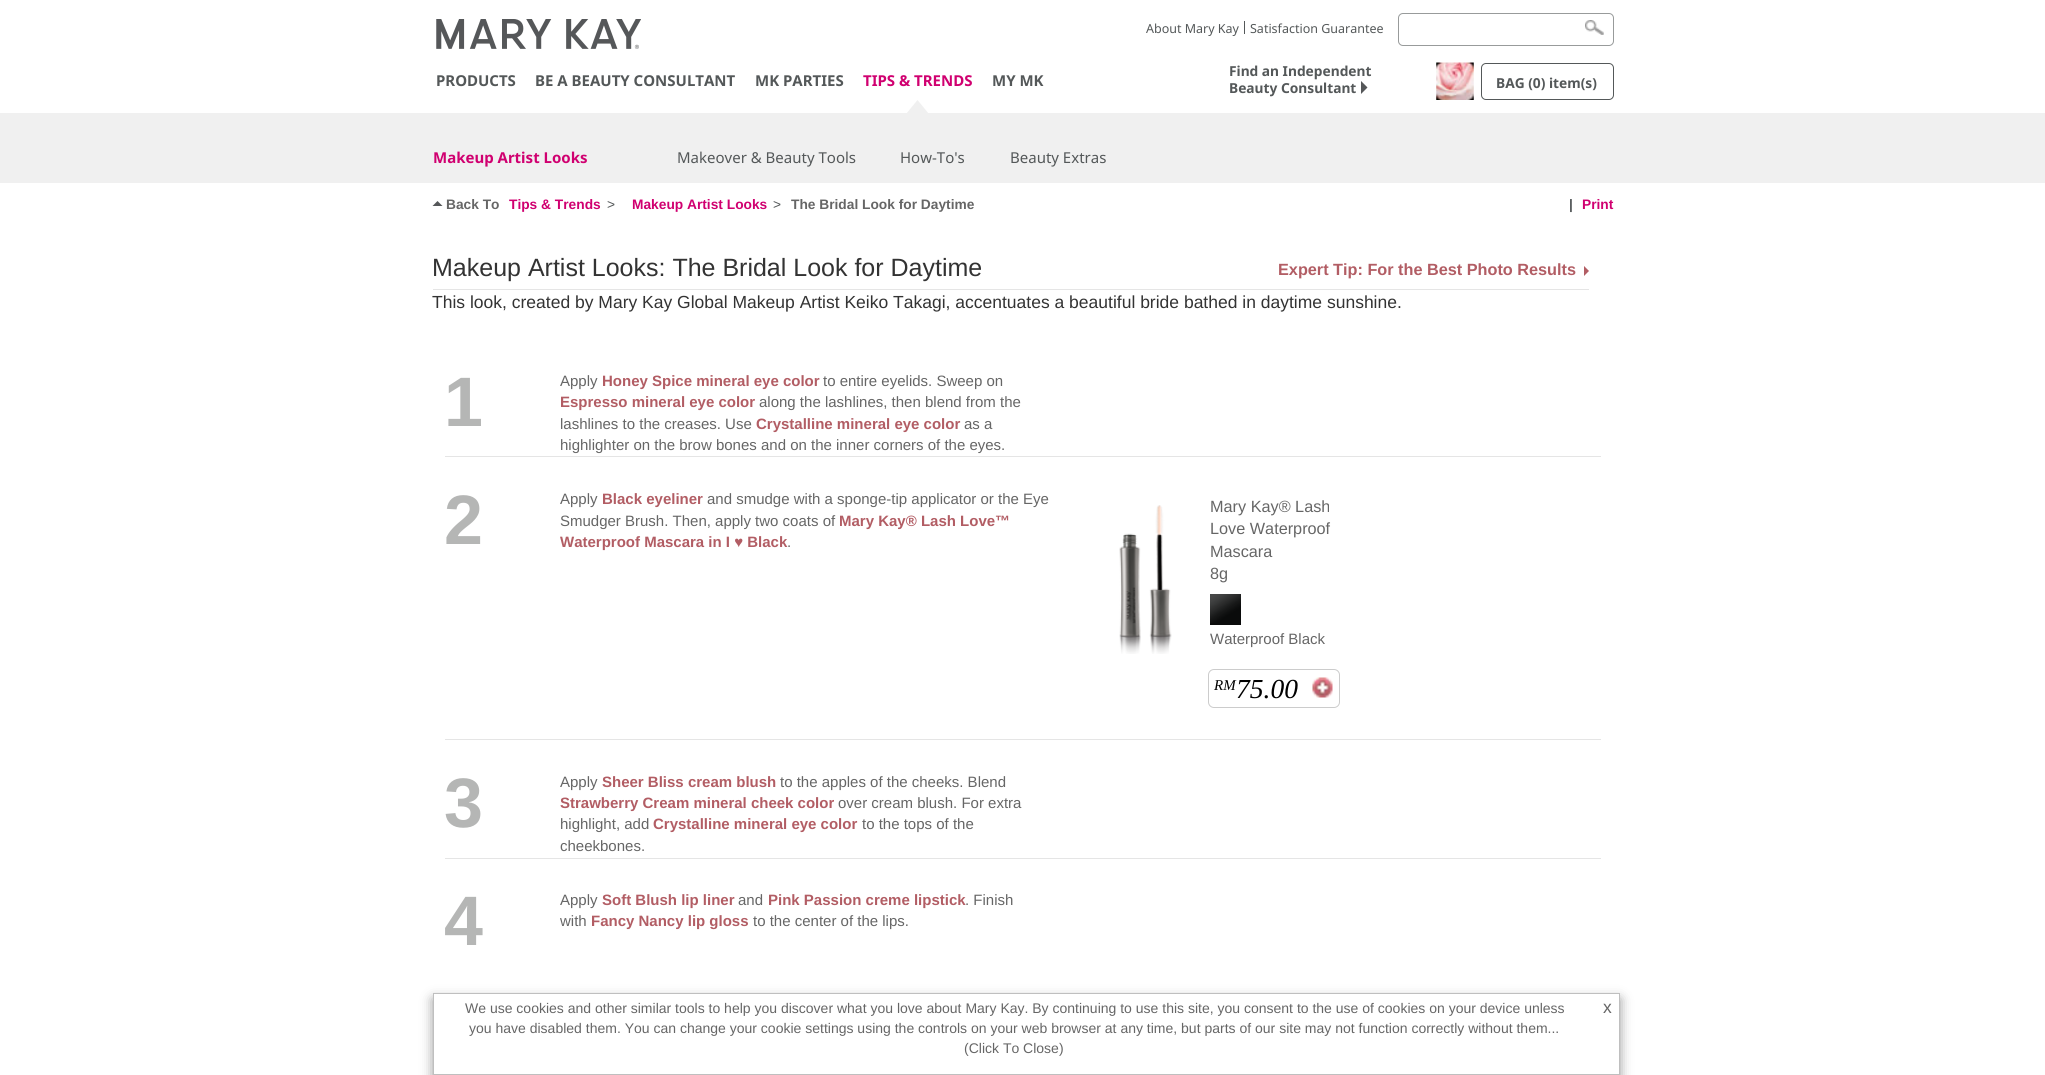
#include <cairo/cairo.h>
#include <math.h>
#include <stddef.h>

typedef struct { double x, y; const char *s; } line_t;
static cairo_t *cr;

static void rgb(unsigned color)
{
	cairo_set_source_rgb(cr, (color >> 16) / 255.0, (color >> 8 & 255) / 255.0, (color & 255) / 255.0);
}

static void rrect(double x, double y, double w, double h, double r)
{
	cairo_new_sub_path(cr);
	cairo_arc(cr, x + w - r, y + h - r, r, 0, M_PI / 2);
	cairo_arc(cr, x + r, y + h - r, r, M_PI / 2, M_PI);
	cairo_arc(cr, x + r, y + r, r, M_PI, 1.5 * M_PI);
	cairo_arc(cr, x + w - r, y + r, r, 1.5 * M_PI, 2 * M_PI);
	cairo_close_path(cr);
}

static void soft_shadow(double x, double y, double w, double h, double r, double blur, double alpha)
{
	cairo_push_group_with_content(cr, CAIRO_CONTENT_ALPHA);
	cairo_set_operator(cr, CAIRO_OPERATOR_SOURCE);
	for (int i = 15; i >= -15 && fmin(w, h) + blur * i / 3 > 0; i -= 2) {
		double e = blur * i / 6;
		cairo_set_source_rgba(cr, 0, 0, 0, alpha * erfc((i - 1) / 8.5) / 2);
		rrect(x - e, y - e, w + 2 * e, h + 2 * e, fmax(0, fmin(r + e + blur * .6, fmin(w, h) / 2 + e)));
		cairo_fill(cr);
	}
	cairo_pattern_t *soft = cairo_pop_group(cr);
	cairo_mask(cr, soft);
	cairo_pattern_destroy(soft);
}

static void image(const char *path, double x, double y, double w, double h)
{
	cairo_surface_t *image = cairo_image_surface_create_from_png(path);
	cairo_save(cr);
	cairo_set_source_surface(cr, image, x, y);
	cairo_rectangle(cr, x, y, w, h);
	cairo_fill(cr);
	cairo_restore(cr);
	cairo_surface_destroy(image);
}

int main(void) {
	cairo_surface_t *surface = cairo_image_surface_create(CAIRO_FORMAT_RGB24, 2045, 1075);
	cr = cairo_create(surface);
	cairo_font_options_t *options = cairo_font_options_create();
	cairo_font_options_set_hint_metrics(options, CAIRO_HINT_METRICS_OFF);
	cairo_font_options_set_hint_style(options, CAIRO_HINT_STYLE_NONE);
	cairo_set_font_options(cr, options);
	cairo_set_miter_limit(cr, 4);
	rgb(0xffffff);
	cairo_paint(cr);
	rgb(0x545859);
	cairo_rectangle(cr, 1244, 21, 1, 13);
	cairo_fill(cr);
	image("img/1.png", 1585, 20, 19, 15);
	cairo_set_source_rgba(cr, 1, 1, 1, 0.6);
	rrect(1398.5, 13.5, 215, 32, 4.5);
	cairo_fill_preserve(cr);
	rgb(0x989b9b);
	cairo_set_line_width(cr, 1);
	cairo_stroke(cr);
	image("img/2.png", 436, 19, 205, 30);
	rgb(0xf0f0f0);
	cairo_rectangle(cr, 0, 113, 2045, 70);
	cairo_fill(cr);
	cairo_new_path(cr);
	cairo_move_to(cr, 929, 114);
	cairo_line_to(cr, 906, 114);
	cairo_line_to(cr, 917.5, 100);
	cairo_close_path(cr);
	cairo_fill(cr);
	rgb(0x555759);
	cairo_new_path(cr);
	cairo_move_to(cr, 1361, 94);
	cairo_line_to(cr, 1361, 81);
	cairo_line_to(cr, 1367.5, 87.5);
	cairo_close_path(cr);
	cairo_fill(cr);
	image("img/3.png", 1436, 62, 38, 38);
	rrect(1481.5, 63.5, 132, 36, 4.5);
	rgb(0x545859);
	cairo_stroke(cr);
	rgb(0x555759);
	cairo_new_path(cr);
	cairo_move_to(cr, 442.5, 206);
	cairo_line_to(cr, 432.5, 206);
	cairo_line_to(cr, 437.5, 201);
	cairo_close_path(cr);
	cairo_fill(cr);
	rgb(0xe5e5e5);
	cairo_rectangle(cr, 433, 289, 1156, 1);
	cairo_fill(cr);
	rgb(0xb25d64);
	cairo_new_path(cr);
	cairo_move_to(cr, 1584, 276);
	cairo_line_to(cr, 1584, 266);
	cairo_line_to(cr, 1589, 271);
	cairo_close_path(cr);
	cairo_fill(cr);
	rgb(0xe5e5e5);
	cairo_rectangle(cr, 445, 456, 1156, 1);
	cairo_fill(cr);
	image("img/4.png", 1119, 505, 53, 149);
	rgb(0x0a0b0b);
	cairo_rectangle(cr, 1210, 594, 31, 31);
	cairo_fill(cr);
	image("img/5.png", 1210, 594, 31, 29);
	rrect(1208.5, 669.5, 131, 38, 5.5);
	rgb(0xcccccc);
	cairo_stroke(cr);
	image("img/6.png", 1312, 677, 21, 21);
	rgb(0xe5e5e5);
	cairo_rectangle(cr, 445, 739, 1156, 1);
	cairo_fill(cr);
	cairo_rectangle(cr, 445, 858, 1156, 1);
	cairo_fill(cr);
	rgb(0x999999);
	soft_shadow(433, 999, 1187, 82, 0, 6, 1);
	rgb(0xffffff);
	cairo_rectangle(cr, 433.5, 993.5, 1186, 81);
	cairo_fill_preserve(cr);
	rgb(0xbfbfbf);
	cairo_stroke(cr);
	cairo_select_font_face(cr, "Noto Sans", CAIRO_FONT_SLANT_NORMAL, CAIRO_FONT_WEIGHT_NORMAL);
	cairo_set_font_size(cr, 12.5);
	rgb(0x545859);
	cairo_move_to(cr, 1146, 33);
	cairo_show_text(cr, "About Mary Kay");
	cairo_move_to(cr, 1250, 33);
	cairo_show_text(cr, "Satisfaction Guarantee");
	cairo_select_font_face(cr, "Noto Sans", CAIRO_FONT_SLANT_NORMAL, CAIRO_FONT_WEIGHT_BOLD);
	cairo_set_font_size(cr, 15);
	{
		static const line_t items[] = {
			{436, 86, "PRODUCTS"},
			{535, 86, "BE A BEAUTY CONSULTANT"},
			{755, 86, "MK PARTIES"},
		};
		for (size_t i = 0; i < sizeof items / sizeof *items; i++) {
			cairo_move_to(cr, items[i].x, items[i].y);
			cairo_show_text(cr, items[i].s);
		}
	}
	rgb(0xd00070);
	cairo_move_to(cr, 863, 86);
	cairo_show_text(cr, "TIPS & TRENDS");
	rgb(0x545859);
	cairo_move_to(cr, 992, 86);
	cairo_show_text(cr, "MY MK");
	cairo_set_font_size(cr, 13.75);
	{
		static const line_t items[] = {
			{1229, 76, "Find an Independent"},
			{1229, 93, "Beauty Consultant"},
			{1496, 88, "BAG (0) item(s)"},
		};
		for (size_t i = 0; i < sizeof items / sizeof *items; i++) {
			cairo_move_to(cr, items[i].x, items[i].y);
			cairo_show_text(cr, items[i].s);
		}
	}
	cairo_set_font_size(cr, 15);
	rgb(0xd00070);
	cairo_move_to(cr, 433, 163);
	cairo_show_text(cr, "Makeup Artist Looks");
	cairo_select_font_face(cr, "Noto Sans", CAIRO_FONT_SLANT_NORMAL, CAIRO_FONT_WEIGHT_NORMAL);
	rgb(0x545859);
	{
		static const line_t items[] = {
			{677, 163, "Makeover & Beauty Tools"},
			{900, 163, "How-To's"},
			{1010, 163, "Beauty Extras"},
		};
		for (size_t i = 0; i < sizeof items / sizeof *items; i++) {
			cairo_move_to(cr, items[i].x, items[i].y);
			cairo_show_text(cr, items[i].s);
		}
	}
	cairo_select_font_face(cr, "Liberation Sans", CAIRO_FONT_SLANT_NORMAL, CAIRO_FONT_WEIGHT_BOLD);
	cairo_set_font_size(cr, 13.75);
	rgb(0x666666);
	cairo_move_to(cr, 446, 209);
	cairo_show_text(cr, "Back To");
	rgb(0xd00070);
	cairo_move_to(cr, 509, 209);
	cairo_show_text(cr, "Tips & Trends");
	cairo_select_font_face(cr, "Liberation Sans", CAIRO_FONT_SLANT_NORMAL, CAIRO_FONT_WEIGHT_NORMAL);
	rgb(0x545859);
	cairo_move_to(cr, 607, 209);
	cairo_show_text(cr, ">");
	cairo_select_font_face(cr, "Liberation Sans", CAIRO_FONT_SLANT_NORMAL, CAIRO_FONT_WEIGHT_BOLD);
	rgb(0xd00070);
	cairo_move_to(cr, 632, 209);
	cairo_show_text(cr, "Makeup Artist Looks");
	cairo_select_font_face(cr, "Liberation Sans", CAIRO_FONT_SLANT_NORMAL, CAIRO_FONT_WEIGHT_NORMAL);
	rgb(0x545859);
	cairo_move_to(cr, 773, 209);
	cairo_show_text(cr, ">");
	cairo_select_font_face(cr, "Liberation Sans", CAIRO_FONT_SLANT_NORMAL, CAIRO_FONT_WEIGHT_BOLD);
	rgb(0x666666);
	cairo_move_to(cr, 791, 209);
	cairo_show_text(cr, "The Bridal Look for Daytime");
	rgb(0x545859);
	cairo_move_to(cr, 1569, 209);
	cairo_show_text(cr, "|");
	rgb(0xd00070);
	cairo_move_to(cr, 1582, 209);
	cairo_show_text(cr, "Print");
	cairo_select_font_face(cr, "Liberation Sans", CAIRO_FONT_SLANT_NORMAL, CAIRO_FONT_WEIGHT_NORMAL);
	cairo_set_font_size(cr, 25);
	rgb(0x333333);
	cairo_move_to(cr, 432, 276);
	cairo_show_text(cr, "Makeup Artist Looks: The Bridal Look for Daytime");
	cairo_select_font_face(cr, "Liberation Sans", CAIRO_FONT_SLANT_NORMAL, CAIRO_FONT_WEIGHT_BOLD);
	cairo_set_font_size(cr, 16.25);
	rgb(0xb25d64);
	cairo_move_to(cr, 1278, 275);
	cairo_show_text(cr, "Expert Tip: For the Best Photo Results");
	cairo_select_font_face(cr, "Liberation Sans", CAIRO_FONT_SLANT_NORMAL, CAIRO_FONT_WEIGHT_NORMAL);
	cairo_set_font_size(cr, 17.5);
	rgb(0x333333);
	cairo_move_to(cr, 432, 308);
	cairo_show_text(cr, "This look, created by Mary Kay Global Makeup Artist Keiko Takagi, accentuates a beautiful bride bathed in daytime sunshine.");
	cairo_select_font_face(cr, "Liberation Sans", CAIRO_FONT_SLANT_NORMAL, CAIRO_FONT_WEIGHT_BOLD);
	cairo_set_font_size(cr, 70);
	rgb(0xb5b6b5);
	cairo_move_to(cr, 444, 426);
	cairo_show_text(cr, "1");
	cairo_select_font_face(cr, "Liberation Sans", CAIRO_FONT_SLANT_NORMAL, CAIRO_FONT_WEIGHT_NORMAL);
	cairo_set_font_size(cr, 15);
	rgb(0x666666);
	cairo_move_to(cr, 560, 386);
	cairo_show_text(cr, "Apply");
	cairo_select_font_face(cr, "Liberation Sans", CAIRO_FONT_SLANT_NORMAL, CAIRO_FONT_WEIGHT_BOLD);
	rgb(0xb25d64);
	cairo_move_to(cr, 602, 386);
	cairo_show_text(cr, "Honey Spice mineral eye color");
	cairo_select_font_face(cr, "Liberation Sans", CAIRO_FONT_SLANT_NORMAL, CAIRO_FONT_WEIGHT_NORMAL);
	rgb(0x666666);
	cairo_move_to(cr, 823, 386);
	cairo_show_text(cr, "to entire eyelids. Sweep on");
	cairo_select_font_face(cr, "Liberation Sans", CAIRO_FONT_SLANT_NORMAL, CAIRO_FONT_WEIGHT_BOLD);
	rgb(0xb25d64);
	cairo_move_to(cr, 560, 407);
	cairo_show_text(cr, "Espresso mineral eye color");
	cairo_select_font_face(cr, "Liberation Sans", CAIRO_FONT_SLANT_NORMAL, CAIRO_FONT_WEIGHT_NORMAL);
	rgb(0x666666);
	cairo_move_to(cr, 759, 407);
	cairo_show_text(cr, "along the lashlines, then blend from the");
	cairo_move_to(cr, 560, 429);
	cairo_show_text(cr, "lashlines to the creases. Use");
	cairo_select_font_face(cr, "Liberation Sans", CAIRO_FONT_SLANT_NORMAL, CAIRO_FONT_WEIGHT_BOLD);
	rgb(0xb25d64);
	cairo_move_to(cr, 756, 429);
	cairo_show_text(cr, "Crystalline mineral eye color");
	cairo_select_font_face(cr, "Liberation Sans", CAIRO_FONT_SLANT_NORMAL, CAIRO_FONT_WEIGHT_NORMAL);
	rgb(0x666666);
	cairo_move_to(cr, 964, 429);
	cairo_show_text(cr, "as a");
	cairo_move_to(cr, 560, 450);
	cairo_show_text(cr, "highlighter on the brow bones and on the inner corners of the eyes.");
	cairo_select_font_face(cr, "Liberation Sans", CAIRO_FONT_SLANT_NORMAL, CAIRO_FONT_WEIGHT_BOLD);
	cairo_set_font_size(cr, 70);
	rgb(0xb5b6b5);
	cairo_move_to(cr, 444, 544);
	cairo_show_text(cr, "2");
	cairo_select_font_face(cr, "Liberation Sans", CAIRO_FONT_SLANT_NORMAL, CAIRO_FONT_WEIGHT_NORMAL);
	cairo_set_font_size(cr, 15);
	rgb(0x666666);
	cairo_move_to(cr, 560, 504);
	cairo_show_text(cr, "Apply");
	cairo_select_font_face(cr, "Liberation Sans", CAIRO_FONT_SLANT_NORMAL, CAIRO_FONT_WEIGHT_BOLD);
	rgb(0xb25d64);
	cairo_move_to(cr, 602, 504);
	cairo_show_text(cr, "Black eyeliner");
	cairo_select_font_face(cr, "Liberation Sans", CAIRO_FONT_SLANT_NORMAL, CAIRO_FONT_WEIGHT_NORMAL);
	rgb(0x666666);
	cairo_move_to(cr, 707, 504);
	cairo_show_text(cr, "and smudge with a sponge-tip applicator or the Eye");
	cairo_move_to(cr, 560, 526);
	cairo_show_text(cr, "Smudger Brush. Then, apply two coats of");
	cairo_select_font_face(cr, "Liberation Sans", CAIRO_FONT_SLANT_NORMAL, CAIRO_FONT_WEIGHT_BOLD);
	rgb(0xb25d64);
	cairo_move_to(cr, 839, 526);
	cairo_show_text(cr, "Mary Kay® Lash Love™");
	cairo_move_to(cr, 560, 547);
	cairo_show_text(cr, "Waterproof Mascara in I ♥ Black");
	cairo_select_font_face(cr, "Liberation Sans", CAIRO_FONT_SLANT_NORMAL, CAIRO_FONT_WEIGHT_NORMAL);
	rgb(0x666666);
	cairo_move_to(cr, 787, 547);
	cairo_show_text(cr, ".");
	cairo_set_font_size(cr, 16.25);
	{
		static const line_t items[] = {
			{1210, 512, "Mary Kay® Lash"},
			{1210, 534, "Love Waterproof"},
			{1210, 557, "Mascara"},
			{1210, 579, "8g"},
		};
		for (size_t i = 0; i < sizeof items / sizeof *items; i++) {
			cairo_move_to(cr, items[i].x, items[i].y);
			cairo_show_text(cr, items[i].s);
		}
	}
	cairo_set_font_size(cr, 15);
	cairo_move_to(cr, 1210, 644);
	cairo_show_text(cr, "Waterproof Black");
	cairo_select_font_face(cr, "Liberation Serif", CAIRO_FONT_SLANT_ITALIC, CAIRO_FONT_WEIGHT_NORMAL);
	rgb(0x000000);
	cairo_move_to(cr, 1214, 690);
	cairo_show_text(cr, "RM");
	cairo_set_font_size(cr, 27.5);
	cairo_move_to(cr, 1236, 698);
	cairo_show_text(cr, "75.00");
	cairo_select_font_face(cr, "Liberation Sans", CAIRO_FONT_SLANT_NORMAL, CAIRO_FONT_WEIGHT_BOLD);
	cairo_set_font_size(cr, 70);
	rgb(0xb5b6b5);
	cairo_move_to(cr, 444, 827);
	cairo_show_text(cr, "3");
	cairo_select_font_face(cr, "Liberation Sans", CAIRO_FONT_SLANT_NORMAL, CAIRO_FONT_WEIGHT_NORMAL);
	cairo_set_font_size(cr, 15);
	rgb(0x666666);
	cairo_move_to(cr, 560, 787);
	cairo_show_text(cr, "Apply");
	cairo_select_font_face(cr, "Liberation Sans", CAIRO_FONT_SLANT_NORMAL, CAIRO_FONT_WEIGHT_BOLD);
	rgb(0xb25d64);
	cairo_move_to(cr, 602, 787);
	cairo_show_text(cr, "Sheer Bliss cream blush");
	cairo_select_font_face(cr, "Liberation Sans", CAIRO_FONT_SLANT_NORMAL, CAIRO_FONT_WEIGHT_NORMAL);
	rgb(0x666666);
	cairo_move_to(cr, 780, 787);
	cairo_show_text(cr, "to the apples of the cheeks. Blend");
	cairo_select_font_face(cr, "Liberation Sans", CAIRO_FONT_SLANT_NORMAL, CAIRO_FONT_WEIGHT_BOLD);
	rgb(0xb25d64);
	cairo_move_to(cr, 560, 808);
	cairo_show_text(cr, "Strawberry Cream mineral cheek color");
	cairo_select_font_face(cr, "Liberation Sans", CAIRO_FONT_SLANT_NORMAL, CAIRO_FONT_WEIGHT_NORMAL);
	rgb(0x666666);
	cairo_move_to(cr, 838, 808);
	cairo_show_text(cr, "over cream blush. For extra");
	cairo_move_to(cr, 560, 829);
	cairo_show_text(cr, "highlight, add");
	cairo_select_font_face(cr, "Liberation Sans", CAIRO_FONT_SLANT_NORMAL, CAIRO_FONT_WEIGHT_BOLD);
	rgb(0xb25d64);
	cairo_move_to(cr, 653, 829);
	cairo_show_text(cr, "Crystalline mineral eye color");
	cairo_select_font_face(cr, "Liberation Sans", CAIRO_FONT_SLANT_NORMAL, CAIRO_FONT_WEIGHT_NORMAL);
	rgb(0x666666);
	cairo_move_to(cr, 862, 829);
	cairo_show_text(cr, "to the tops of the");
	cairo_move_to(cr, 560, 851);
	cairo_show_text(cr, "cheekbones.");
	cairo_select_font_face(cr, "Liberation Sans", CAIRO_FONT_SLANT_NORMAL, CAIRO_FONT_WEIGHT_BOLD);
	cairo_set_font_size(cr, 70);
	rgb(0xb5b6b5);
	cairo_move_to(cr, 444, 945);
	cairo_show_text(cr, "4");
	cairo_select_font_face(cr, "Liberation Sans", CAIRO_FONT_SLANT_NORMAL, CAIRO_FONT_WEIGHT_NORMAL);
	cairo_set_font_size(cr, 15);
	rgb(0x666666);
	cairo_move_to(cr, 560, 905);
	cairo_show_text(cr, "Apply");
	cairo_select_font_face(cr, "Liberation Sans", CAIRO_FONT_SLANT_NORMAL, CAIRO_FONT_WEIGHT_BOLD);
	rgb(0xb25d64);
	cairo_move_to(cr, 602, 905);
	cairo_show_text(cr, "Soft Blush lip liner");
	cairo_select_font_face(cr, "Liberation Sans", CAIRO_FONT_SLANT_NORMAL, CAIRO_FONT_WEIGHT_NORMAL);
	rgb(0x666666);
	cairo_move_to(cr, 738, 905);
	cairo_show_text(cr, "and");
	cairo_select_font_face(cr, "Liberation Sans", CAIRO_FONT_SLANT_NORMAL, CAIRO_FONT_WEIGHT_BOLD);
	rgb(0xb25d64);
	cairo_move_to(cr, 768, 905);
	cairo_show_text(cr, "Pink Passion creme lipstick");
	cairo_select_font_face(cr, "Liberation Sans", CAIRO_FONT_SLANT_NORMAL, CAIRO_FONT_WEIGHT_NORMAL);
	rgb(0x666666);
	cairo_move_to(cr, 965, 905);
	cairo_show_text(cr, ". Finish");
	cairo_move_to(cr, 560, 926);
	cairo_show_text(cr, "with");
	cairo_select_font_face(cr, "Liberation Sans", CAIRO_FONT_SLANT_NORMAL, CAIRO_FONT_WEIGHT_BOLD);
	rgb(0xb25d64);
	cairo_move_to(cr, 591, 926);
	cairo_show_text(cr, "Fancy Nancy lip gloss");
	cairo_select_font_face(cr, "Liberation Sans", CAIRO_FONT_SLANT_NORMAL, CAIRO_FONT_WEIGHT_NORMAL);
	rgb(0x666666);
	cairo_move_to(cr, 753, 926);
	cairo_show_text(cr, "to the center of the lips.");
	cairo_set_font_size(cr, 14);
	{
		static const line_t items[] = {
			{465, 1013, "We use cookies and other similar tools to help you discover what you love about Mary Kay. By continuing to use this site, you consent to the use of cookies on your device unless"},
			{469, 1033, "you have disabled them. You can change your cookie settings using the controls on your web browser at any time, but parts of our site may not function correctly without them..."},
			{964, 1053, "(Click To Close)"},
		};
		for (size_t i = 0; i < sizeof items / sizeof *items; i++) {
			cairo_move_to(cr, items[i].x, items[i].y);
			cairo_show_text(cr, items[i].s);
		}
	}
	cairo_set_font_size(cr, 17.5);
	cairo_move_to(cr, 1603, 1013);
	cairo_show_text(cr, "x");
	cairo_surface_write_to_png(surface, "page.png");
	cairo_font_options_destroy(options);
	cairo_destroy(cr);
	cairo_surface_destroy(surface);
	return 0;
}
